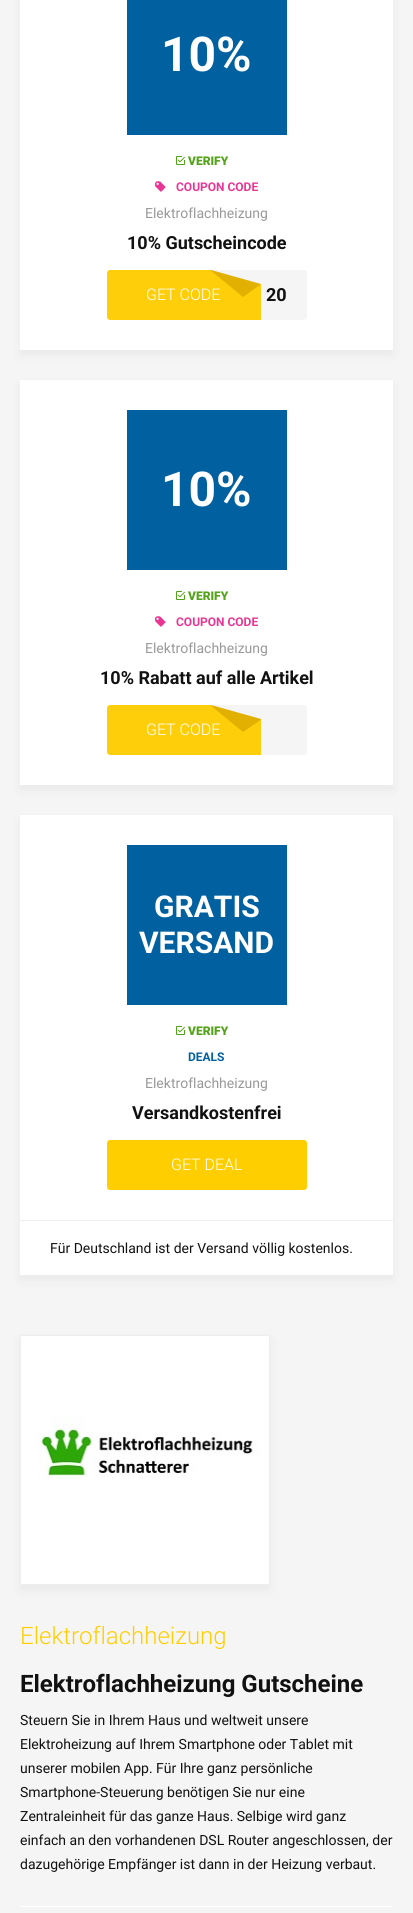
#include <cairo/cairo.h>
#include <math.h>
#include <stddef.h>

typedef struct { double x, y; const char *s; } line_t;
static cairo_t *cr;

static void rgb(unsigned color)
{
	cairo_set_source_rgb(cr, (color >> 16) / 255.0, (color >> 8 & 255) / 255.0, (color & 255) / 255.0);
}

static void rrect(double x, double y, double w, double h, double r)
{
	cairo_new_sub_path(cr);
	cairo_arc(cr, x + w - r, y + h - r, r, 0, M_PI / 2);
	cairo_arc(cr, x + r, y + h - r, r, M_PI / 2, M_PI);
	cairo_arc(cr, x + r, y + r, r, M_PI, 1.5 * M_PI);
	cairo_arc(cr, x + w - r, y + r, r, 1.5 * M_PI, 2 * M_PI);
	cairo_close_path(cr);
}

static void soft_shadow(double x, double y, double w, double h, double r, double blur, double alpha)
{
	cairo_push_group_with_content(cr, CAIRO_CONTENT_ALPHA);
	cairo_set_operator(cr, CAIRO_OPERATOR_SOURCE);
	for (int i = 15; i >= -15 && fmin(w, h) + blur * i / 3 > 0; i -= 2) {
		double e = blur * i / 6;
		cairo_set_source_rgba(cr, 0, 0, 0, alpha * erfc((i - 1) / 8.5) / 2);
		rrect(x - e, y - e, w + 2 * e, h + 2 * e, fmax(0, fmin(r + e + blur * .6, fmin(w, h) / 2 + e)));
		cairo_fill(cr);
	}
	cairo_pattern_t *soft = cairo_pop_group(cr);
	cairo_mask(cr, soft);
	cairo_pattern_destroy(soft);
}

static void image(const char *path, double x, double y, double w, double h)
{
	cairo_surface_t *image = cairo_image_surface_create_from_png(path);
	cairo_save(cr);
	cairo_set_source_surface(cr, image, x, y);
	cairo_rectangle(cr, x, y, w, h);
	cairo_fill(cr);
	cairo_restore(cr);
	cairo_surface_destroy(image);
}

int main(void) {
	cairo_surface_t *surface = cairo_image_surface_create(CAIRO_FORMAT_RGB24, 413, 1913);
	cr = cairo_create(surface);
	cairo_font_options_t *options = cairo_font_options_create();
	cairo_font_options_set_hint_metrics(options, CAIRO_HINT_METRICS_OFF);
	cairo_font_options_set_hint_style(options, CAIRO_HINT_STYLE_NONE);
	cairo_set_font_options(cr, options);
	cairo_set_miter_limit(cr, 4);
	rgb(0xf5f5f5);
	cairo_paint(cr);
	rgb(0x000000);
	soft_shadow(20, -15, 373, 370, 0, 5, 0.05);
	rgb(0xffffff);
	cairo_rectangle(cr, 20, 0, 373, 350);
	cairo_fill(cr);
	rgb(0x0160a0);
	cairo_rectangle(cr, 127, 0, 160, 135);
	cairo_fill(cr);
	image("img/1.png", 176, 156, 9, 9);
	image("img/2.png", 155, 181, 11, 11);
	rgb(0xf5f5f5);
	rrect(107, 270, 200, 50, 3);
	cairo_fill(cr);
	rgb(0xffce0a);
	cairo_new_path(cr);
	cairo_move_to(cr, 110, 270);
	cairo_line_to(cr, 261, 270);
	cairo_line_to(cr, 261, 320);
	cairo_line_to(cr, 110, 320);
	cairo_curve_to(cr, 108.5, 320, 107, 318.5, 107, 317);
	cairo_line_to(cr, 107, 273);
	cairo_curve_to(cr, 107, 271.5, 108.5, 270, 110, 270);
	cairo_close_path(cr);
	cairo_fill(cr);
	rgb(0x000000);
	soft_shadow(20, 385, 373, 405, 0, 5, 0.05);
	rgb(0xffffff);
	cairo_rectangle(cr, 20, 380, 373, 405);
	cairo_fill(cr);
	rgb(0x0160a0);
	cairo_rectangle(cr, 127, 410, 160, 160);
	cairo_fill(cr);
	image("img/1.png", 176, 591, 9, 9);
	image("img/2.png", 155, 616, 11, 11);
	rgb(0xf5f5f5);
	rrect(107, 705, 200, 50, 3);
	cairo_fill(cr);
	rgb(0xffce0a);
	cairo_new_path(cr);
	cairo_move_to(cr, 110, 705);
	cairo_line_to(cr, 261, 705);
	cairo_line_to(cr, 261, 755);
	cairo_line_to(cr, 110, 755);
	cairo_curve_to(cr, 108.5, 755, 107, 753.5, 107, 752);
	cairo_line_to(cr, 107, 708);
	cairo_curve_to(cr, 107, 706.5, 108.5, 705, 110, 705);
	cairo_close_path(cr);
	cairo_fill(cr);
	rgb(0x000000);
	soft_shadow(20, 820, 373, 460, 0, 5, 0.05);
	rgb(0xffffff);
	cairo_rectangle(cr, 20, 815, 373, 460);
	cairo_fill(cr);
	rgb(0x0160a0);
	cairo_rectangle(cr, 127, 845, 160, 160);
	cairo_fill(cr);
	image("img/1.png", 176, 1026, 9, 9);
	rgb(0xffce00);
	rrect(107, 1140, 200, 50, 3);
	cairo_fill(cr);
	rgb(0xefefef);
	cairo_rectangle(cr, 20, 1220, 373, 1);
	cairo_fill(cr);
	rgb(0xffffff);
	cairo_rectangle(cr, 20, 1906, 373, 1);
	cairo_fill(cr);
	rgb(0x000000);
	soft_shadow(20, 1340, 250, 250, 0, 5, 0.05);
	cairo_rectangle(cr, 20.5, 1335.5, 249, 249);
	rgb(0xeeeeee);
	cairo_set_line_width(cr, 1);
	cairo_stroke(cr);
	image("img/3.png", 21, 1336, 248, 248);
	cairo_select_font_face(cr, "Roboto", CAIRO_FONT_SLANT_NORMAL, CAIRO_FONT_WEIGHT_BOLD);
	cairo_set_font_size(cr, 48);
	rgb(0xffffff);
	cairo_move_to(cr, 161, 71);
	cairo_show_text(cr, "10%");
	cairo_select_font_face(cr, "Roboto Black", CAIRO_FONT_SLANT_NORMAL, CAIRO_FONT_WEIGHT_NORMAL);
	cairo_set_font_size(cr, 12);
	rgb(0x53a318);
	cairo_move_to(cr, 188, 165);
	cairo_show_text(cr, "VERIFY");
	cairo_select_font_face(cr, "Roboto", CAIRO_FONT_SLANT_NORMAL, CAIRO_FONT_WEIGHT_BOLD);
	rgb(0xe93694);
	cairo_move_to(cr, 176, 191);
	cairo_show_text(cr, "COUPON CODE");
	cairo_select_font_face(cr, "Roboto", CAIRO_FONT_SLANT_NORMAL, CAIRO_FONT_WEIGHT_NORMAL);
	cairo_set_font_size(cr, 14);
	rgb(0x999999);
	cairo_move_to(cr, 145, 218);
	cairo_show_text(cr, "Elektroflachheizung");
	cairo_select_font_face(cr, "Roboto", CAIRO_FONT_SLANT_NORMAL, CAIRO_FONT_WEIGHT_BOLD);
	cairo_set_font_size(cr, 18);
	rgb(0x111111);
	cairo_move_to(cr, 127, 249);
	cairo_show_text(cr, "10% Gutscheincode");
	cairo_select_font_face(cr, "Roboto Light", CAIRO_FONT_SLANT_NORMAL, CAIRO_FONT_WEIGHT_NORMAL);
	cairo_set_font_size(cr, 16);
	rgb(0xffffff);
	cairo_move_to(cr, 146, 300);
	cairo_show_text(cr, "GET CODE");
	cairo_save(cr);
	cairo_rectangle(cr, 107, 270, 154, 50);
	cairo_clip(cr);
	rgb(0xe1b000);
	cairo_new_path(cr);
	cairo_move_to(cr, 238, 270);
	cairo_line_to(cr, 272, 276);
	cairo_line_to(cr, 243, 297);
	cairo_line_to(cr, 210, 270);
	cairo_close_path(cr);
	cairo_fill(cr);
	cairo_restore(cr);
	rgb(0xf5f5f5);
	cairo_new_path(cr);
	cairo_move_to(cr, 261, 270);
	cairo_line_to(cr, 261, 284);
	cairo_line_to(cr, 211, 270);
	cairo_close_path(cr);
	cairo_fill(cr);
	cairo_select_font_face(cr, "Roboto", CAIRO_FONT_SLANT_NORMAL, CAIRO_FONT_WEIGHT_BOLD);
	cairo_set_font_size(cr, 18);
	rgb(0x111111);
	cairo_move_to(cr, 266, 301);
	cairo_show_text(cr, "20");
	cairo_set_font_size(cr, 48);
	rgb(0xffffff);
	cairo_move_to(cr, 161, 506);
	cairo_show_text(cr, "10%");
	cairo_select_font_face(cr, "Roboto Black", CAIRO_FONT_SLANT_NORMAL, CAIRO_FONT_WEIGHT_NORMAL);
	cairo_set_font_size(cr, 12);
	rgb(0x53a318);
	cairo_move_to(cr, 188, 600);
	cairo_show_text(cr, "VERIFY");
	cairo_select_font_face(cr, "Roboto", CAIRO_FONT_SLANT_NORMAL, CAIRO_FONT_WEIGHT_BOLD);
	rgb(0xe93694);
	cairo_move_to(cr, 176, 626);
	cairo_show_text(cr, "COUPON CODE");
	cairo_select_font_face(cr, "Roboto", CAIRO_FONT_SLANT_NORMAL, CAIRO_FONT_WEIGHT_NORMAL);
	cairo_set_font_size(cr, 14);
	rgb(0x999999);
	cairo_move_to(cr, 145, 653);
	cairo_show_text(cr, "Elektroflachheizung");
	cairo_select_font_face(cr, "Roboto", CAIRO_FONT_SLANT_NORMAL, CAIRO_FONT_WEIGHT_BOLD);
	cairo_set_font_size(cr, 18);
	rgb(0x111111);
	cairo_move_to(cr, 100, 684);
	cairo_show_text(cr, "10% Rabatt auf alle Artikel");
	cairo_select_font_face(cr, "Roboto Light", CAIRO_FONT_SLANT_NORMAL, CAIRO_FONT_WEIGHT_NORMAL);
	cairo_set_font_size(cr, 16);
	rgb(0xffffff);
	cairo_move_to(cr, 146, 735);
	cairo_show_text(cr, "GET CODE");
	cairo_save(cr);
	cairo_rectangle(cr, 107, 705, 154, 50);
	cairo_clip(cr);
	rgb(0xe1b000);
	cairo_new_path(cr);
	cairo_move_to(cr, 235, 705);
	cairo_line_to(cr, 272, 712);
	cairo_line_to(cr, 243, 732);
	cairo_line_to(cr, 210, 705);
	cairo_close_path(cr);
	cairo_fill(cr);
	cairo_restore(cr);
	rgb(0xf5f5f5);
	cairo_new_path(cr);
	cairo_move_to(cr, 261, 705);
	cairo_line_to(cr, 261, 719);
	cairo_line_to(cr, 211, 705);
	cairo_close_path(cr);
	cairo_fill(cr);
	cairo_select_font_face(cr, "Roboto", CAIRO_FONT_SLANT_NORMAL, CAIRO_FONT_WEIGHT_BOLD);
	cairo_set_font_size(cr, 30);
	rgb(0xffffff);
	cairo_move_to(cr, 154, 917);
	cairo_show_text(cr, "GRATIS");
	cairo_move_to(cr, 139, 953);
	cairo_show_text(cr, "VERSAND");
	cairo_select_font_face(cr, "Roboto Black", CAIRO_FONT_SLANT_NORMAL, CAIRO_FONT_WEIGHT_NORMAL);
	cairo_set_font_size(cr, 12);
	rgb(0x53a318);
	cairo_move_to(cr, 188, 1035);
	cairo_show_text(cr, "VERIFY");
	cairo_select_font_face(cr, "Roboto", CAIRO_FONT_SLANT_NORMAL, CAIRO_FONT_WEIGHT_BOLD);
	rgb(0x0160a0);
	cairo_move_to(cr, 188, 1061);
	cairo_show_text(cr, "DEALS");
	cairo_select_font_face(cr, "Roboto", CAIRO_FONT_SLANT_NORMAL, CAIRO_FONT_WEIGHT_NORMAL);
	cairo_set_font_size(cr, 14);
	rgb(0x999999);
	cairo_move_to(cr, 145, 1088);
	cairo_show_text(cr, "Elektroflachheizung");
	cairo_select_font_face(cr, "Roboto", CAIRO_FONT_SLANT_NORMAL, CAIRO_FONT_WEIGHT_BOLD);
	cairo_set_font_size(cr, 18);
	rgb(0x111111);
	cairo_move_to(cr, 132, 1119);
	cairo_show_text(cr, "Versandkostenfrei");
	cairo_select_font_face(cr, "Roboto Light", CAIRO_FONT_SLANT_NORMAL, CAIRO_FONT_WEIGHT_NORMAL);
	cairo_set_font_size(cr, 16);
	rgb(0xffffff);
	cairo_move_to(cr, 171, 1170);
	cairo_show_text(cr, "GET DEAL");
	cairo_select_font_face(cr, "Roboto", CAIRO_FONT_SLANT_NORMAL, CAIRO_FONT_WEIGHT_NORMAL);
	cairo_set_font_size(cr, 14);
	rgb(0x111111);
	cairo_move_to(cr, 50, 1253);
	cairo_show_text(cr, "Für Deutschland ist der Versand völlig kostenlos.");
	cairo_select_font_face(cr, "Roboto Light", CAIRO_FONT_SLANT_NORMAL, CAIRO_FONT_WEIGHT_NORMAL);
	cairo_set_font_size(cr, 24);
	rgb(0xffce00);
	cairo_move_to(cr, 20, 1644);
	cairo_show_text(cr, "Elektroflachheizung");
	cairo_select_font_face(cr, "Roboto", CAIRO_FONT_SLANT_NORMAL, CAIRO_FONT_WEIGHT_BOLD);
	rgb(0x111111);
	cairo_move_to(cr, 20, 1692);
	cairo_show_text(cr, "Elektroflachheizung Gutscheine");
	cairo_select_font_face(cr, "Roboto", CAIRO_FONT_SLANT_NORMAL, CAIRO_FONT_WEIGHT_NORMAL);
	cairo_set_font_size(cr, 14);
	{
		static const line_t items[] = {
			{20, 1725, "Steuern Sie in Ihrem Haus und weltweit unsere"},
			{20, 1749, "Elektroheizung auf Ihrem Smartphone oder Tablet mit"},
			{20, 1773, "unserer mobilen App. Für Ihre ganz persönliche"},
			{20, 1797, "Smartphone-Steuerung benötigen Sie nur eine"},
			{20, 1821, "Zentraleinheit für das ganze Haus. Selbige wird ganz"},
			{20, 1845, "einfach an den vorhandenen DSL Router angeschlossen, der"},
			{20, 1869, "dazugehörige Empfänger ist dann in der Heizung verbaut."},
		};
		for (size_t i = 0; i < sizeof items / sizeof *items; i++) {
			cairo_move_to(cr, items[i].x, items[i].y);
			cairo_show_text(cr, items[i].s);
		}
	}
	cairo_surface_write_to_png(surface, "page.png");
	cairo_font_options_destroy(options);
	cairo_destroy(cr);
	cairo_surface_destroy(surface);
	return 0;
}
